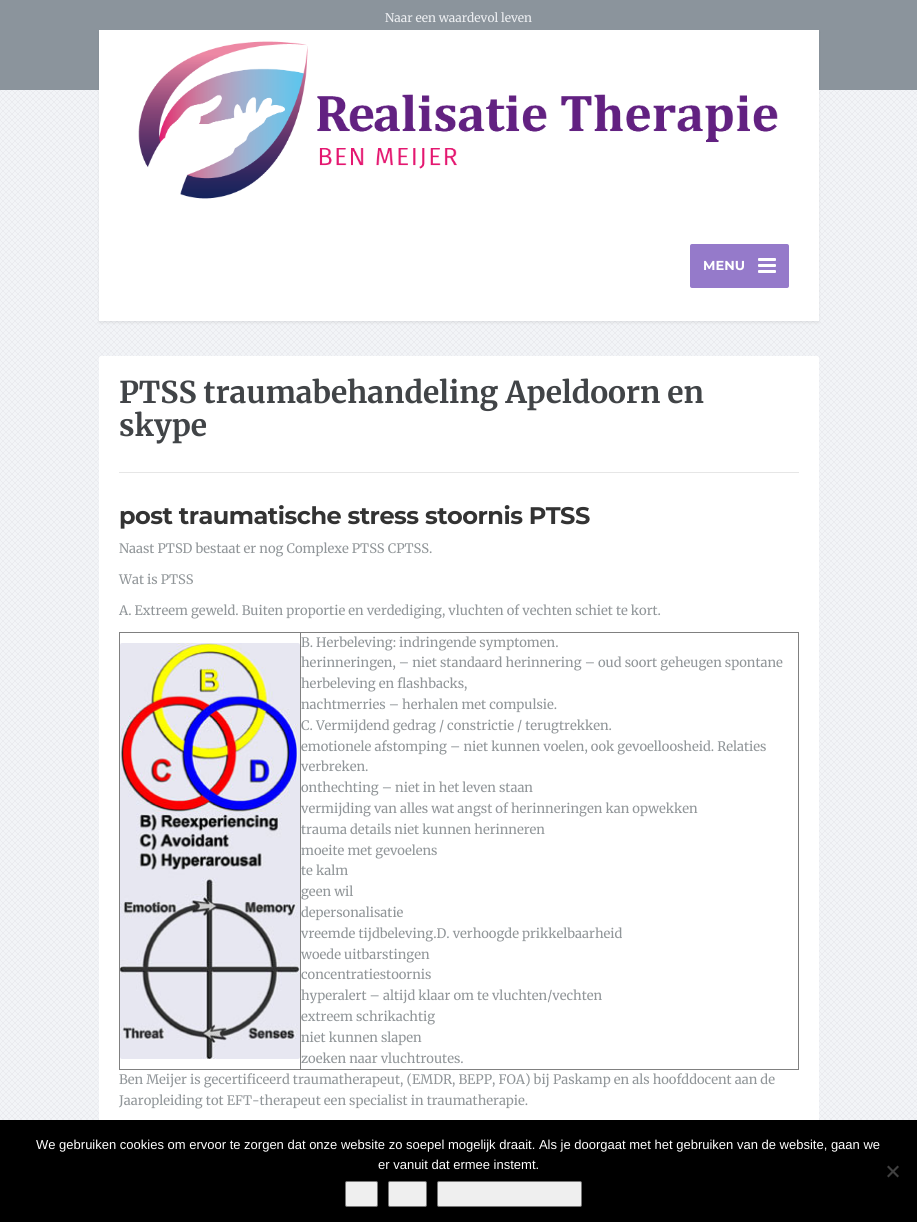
#include <cairo/cairo.h>
#include <math.h>
#include <stddef.h>

typedef struct { double x, y; const char *s; } line_t;
typedef struct { double x, y, w, h; unsigned color; } box_t;
static cairo_t *cr;

static void rgb(unsigned color)
{
	cairo_set_source_rgb(cr, (color >> 16) / 255.0, (color >> 8 & 255) / 255.0, (color & 255) / 255.0);
}

static void tracked(double x, double y, const char *s, double letter, double word)
{
	cairo_move_to(cr, x, y);
	while (*s) {
		char ch[5] = {0};
		int n = 0;
		do ch[n++] = *s++; while ((*s & 0xC0) == 0x80);
		cairo_show_text(cr, ch);
		cairo_rel_move_to(cr, letter + word * (*ch == ' '), 0);
	}
}

static void rrect(double x, double y, double w, double h, double r)
{
	cairo_new_sub_path(cr);
	cairo_arc(cr, x + w - r, y + h - r, r, 0, M_PI / 2);
	cairo_arc(cr, x + r, y + h - r, r, M_PI / 2, M_PI);
	cairo_arc(cr, x + r, y + r, r, M_PI, 1.5 * M_PI);
	cairo_arc(cr, x + w - r, y + r, r, 1.5 * M_PI, 2 * M_PI);
	cairo_close_path(cr);
}

static void soft_shadow(double x, double y, double w, double h, double r, double blur, double alpha)
{
	cairo_push_group_with_content(cr, CAIRO_CONTENT_ALPHA);
	cairo_set_operator(cr, CAIRO_OPERATOR_SOURCE);
	for (int i = 15; i >= -15 && fmin(w, h) + blur * i / 3 > 0; i -= 2) {
		double e = blur * i / 6;
		cairo_set_source_rgba(cr, 0, 0, 0, alpha * erfc((i - 1) / 8.5) / 2);
		rrect(x - e, y - e, w + 2 * e, h + 2 * e, fmax(0, fmin(r + e + blur * .6, fmin(w, h) / 2 + e)));
		cairo_fill(cr);
	}
	cairo_pattern_t *soft = cairo_pop_group(cr);
	cairo_mask(cr, soft);
	cairo_pattern_destroy(soft);
}

static void image(const char *path, double x, double y, double w, double h)
{
	cairo_surface_t *image = cairo_image_surface_create_from_png(path);
	cairo_save(cr);
	cairo_set_source_surface(cr, image, x, y);
	cairo_rectangle(cr, x, y, w, h);
	cairo_fill(cr);
	cairo_restore(cr);
	cairo_surface_destroy(image);
}

int main(void) {
	cairo_surface_t *surface = cairo_image_surface_create(CAIRO_FORMAT_RGB24, 917, 1222);
	cr = cairo_create(surface);
	cairo_font_options_t *options = cairo_font_options_create();
	cairo_font_options_set_hint_metrics(options, CAIRO_HINT_METRICS_OFF);
	cairo_font_options_set_hint_style(options, CAIRO_HINT_STYLE_NONE);
	cairo_set_font_options(cr, options);
	cairo_set_miter_limit(cr, 4);
	rgb(0xf2f4f7);
	cairo_paint(cr);
	image("img/1.png", 0, 90, 917, 1030);
	rgb(0x8b949c);
	cairo_rectangle(cr, 0, 0, 917, 90);
	cairo_fill(cr);
	rgb(0x1f1f1f);
	soft_shadow(99, 32, 720, 291, 0, 1.5, 0.08);
	rgb(0xffffff);
	cairo_rectangle(cr, 99, 30, 720, 291);
	cairo_fill(cr);
	image("img/2.png", 138, 41, 640, 158);
	rgb(0x957aca);
	rrect(690, 244, 99, 44, 2);
	cairo_fill(cr);
	rgb(0xffffff);
	rrect(758, 258, 18, 3, 1);
	cairo_fill(cr);
	rrect(758, 264, 18, 3, 1);
	cairo_fill(cr);
	rrect(758, 270, 18, 3, 1);
	cairo_fill(cr);
	rrect(99, 356, 720, 786, 2);
	cairo_fill(cr);
	{
		static const box_t items[] = {
			{119, 472, 680, 1, 0xe6e6e6},
			{119, 632, 680, 1, 0x808080},
			{798, 632, 1, 438, 0x808080},
			{119, 1069, 680, 1, 0x808080},
			{119, 632, 1, 438, 0x808080},
		};
		for (size_t i = 0; i < sizeof items / sizeof *items; i++) {
			rgb(items[i].color);
			cairo_rectangle(cr, items[i].x, items[i].y, items[i].w, items[i].h);
			cairo_fill(cr);
		}
	}
	image("img/3.png", 120, 643, 180, 416);
	cairo_rectangle(cr, 300, 632, 1, 438);
	cairo_fill(cr);
	rgb(0x000000);
	cairo_rectangle(cr, 0, 1120, 917, 102);
	cairo_fill(cr);
	rgb(0x404040);
	cairo_new_path(cr);
	cairo_move_to(cr, 897.5, 1165.5);
	cairo_line_to(cr, 899, 1167);
	cairo_line_to(cr, 888.5, 1177.5);
	cairo_line_to(cr, 887, 1176);
	cairo_close_path(cr);
	cairo_fill(cr);
	cairo_new_path(cr);
	cairo_move_to(cr, 887, 1167);
	cairo_line_to(cr, 888.5, 1165.5);
	cairo_line_to(cr, 899, 1176);
	cairo_line_to(cr, 897.5, 1177.5);
	cairo_close_path(cr);
	cairo_fill(cr);
	rgb(0xefefef);
	rrect(345.5, 1181.5, 32, 25, 1.5);
	cairo_fill_preserve(cr);
	rgb(0x767676);
	cairo_set_line_width(cr, 1);
	cairo_stroke(cr);
	rgb(0xefefef);
	rrect(388.5, 1181.5, 38, 25, 1.5);
	cairo_fill_preserve(cr);
	rgb(0x767676);
	cairo_stroke(cr);
	rgb(0xefefef);
	rrect(437.5, 1181.5, 144, 25, 1.5);
	cairo_fill_preserve(cr);
	rgb(0x767676);
	cairo_stroke(cr);
	cairo_select_font_face(cr, "Merriweather", CAIRO_FONT_SLANT_NORMAL, CAIRO_FONT_WEIGHT_NORMAL);
	cairo_set_font_size(cr, 12);
	rgb(0xedeff2);
	cairo_move_to(cr, 385, 22);
	cairo_show_text(cr, "Naar een waardevol leven");
	cairo_select_font_face(cr, "Montserrat", CAIRO_FONT_SLANT_NORMAL, CAIRO_FONT_WEIGHT_BOLD);
	cairo_set_font_size(cr, 13);
	rgb(0xffffff);
	cairo_move_to(cr, 703, 270);
	cairo_show_text(cr, "MENU");
	cairo_select_font_face(cr, "Merriweather", CAIRO_FONT_SLANT_NORMAL, CAIRO_FONT_WEIGHT_BOLD);
	cairo_set_font_size(cr, 30);
	rgb(0x414447);
	cairo_move_to(cr, 119, 403);
	cairo_show_text(cr, "PTSS traumabehandeling Apeldoorn en");
	cairo_move_to(cr, 119, 436);
	cairo_show_text(cr, "skype");
	cairo_select_font_face(cr, "Montserrat", CAIRO_FONT_SLANT_NORMAL, CAIRO_FONT_WEIGHT_BOLD);
	cairo_set_font_size(cr, 24);
	rgb(0x333333);
	tracked(119, 524, "post traumatische stress stoornis PTSS", -0.5, 0);
	cairo_select_font_face(cr, "Merriweather", CAIRO_FONT_SLANT_NORMAL, CAIRO_FONT_WEIGHT_NORMAL);
	cairo_set_font_size(cr, 13);
	rgb(0x919699);
	{
		static const line_t items[] = {
			{119, 553, "Naast PTSD bestaat er nog Complexe PTSS CPTSS."},
			{119, 584, "Wat is PTSS"},
			{119, 615, "A. Extreem geweld. Buiten proportie en verdediging, vluchten of vechten schiet te kort."},
			{301, 647, "B. Herbeleving: indringende symptomen."},
			{301, 667, "herinneringen, – niet standaard herinnering – oud soort geheugen spontane"},
			{301, 688, "herbeleving en flashbacks,"},
			{301, 709, "nachtmerries – herhalen met compulsie."},
			{301, 730, "C. Vermijdend gedrag / constrictie / terugtrekken."},
			{301, 751, "emotionele afstomping – niet kunnen voelen, ook gevoelloosheid. Relaties"},
			{301, 771, "verbreken."},
			{301, 792, "onthechting – niet in het leven staan"},
			{301, 813, "vermijding van alles wat angst of herinneringen kan opwekken"},
			{301, 834, "trauma details niet kunnen herinneren"},
			{301, 855, "moeite met gevoelens"},
			{301, 875, "te kalm"},
			{301, 896, "geen wil"},
			{301, 917, "depersonalisatie"},
			{301, 938, "vreemde tijdbeleving.D. verhoogde prikkelbaarheid"},
			{301, 959, "woede uitbarstingen"},
			{301, 979, "concentratiestoornis"},
			{301, 1000, "hyperalert – altijd klaar om te vluchten/vechten"},
			{301, 1021, "extreem schrikachtig"},
			{301, 1042, "niet kunnen slapen"},
			{301, 1063, "zoeken naar vluchtroutes."},
			{119, 1084, "Ben Meijer is gecertificeerd traumatherapeut, (EMDR, BEPP, FOA) bij Paskamp en als hoofddocent aan de"},
			{119, 1105, "Jaaropleiding tot EFT-therapeut een specialist in traumatherapie."},
		};
		for (size_t i = 0; i < sizeof items / sizeof *items; i++) {
			cairo_move_to(cr, items[i].x, items[i].y);
			cairo_show_text(cr, items[i].s);
		}
	}
	cairo_select_font_face(cr, "Liberation Sans", CAIRO_FONT_SLANT_NORMAL, CAIRO_FONT_WEIGHT_NORMAL);
	rgb(0xffffff);
	cairo_move_to(cr, 36, 1149);
	cairo_show_text(cr, "We gebruiken cookies om ervoor te zorgen dat onze website zo soepel mogelijk draait. Als je doorgaat met het gebruiken van de website, gaan we");
	cairo_move_to(cr, 378, 1169);
	cairo_show_text(cr, "er vanuit dat ermee instemt.");
	cairo_surface_write_to_png(surface, "page.png");
	cairo_font_options_destroy(options);
	cairo_destroy(cr);
	cairo_surface_destroy(surface);
	return 0;
}
